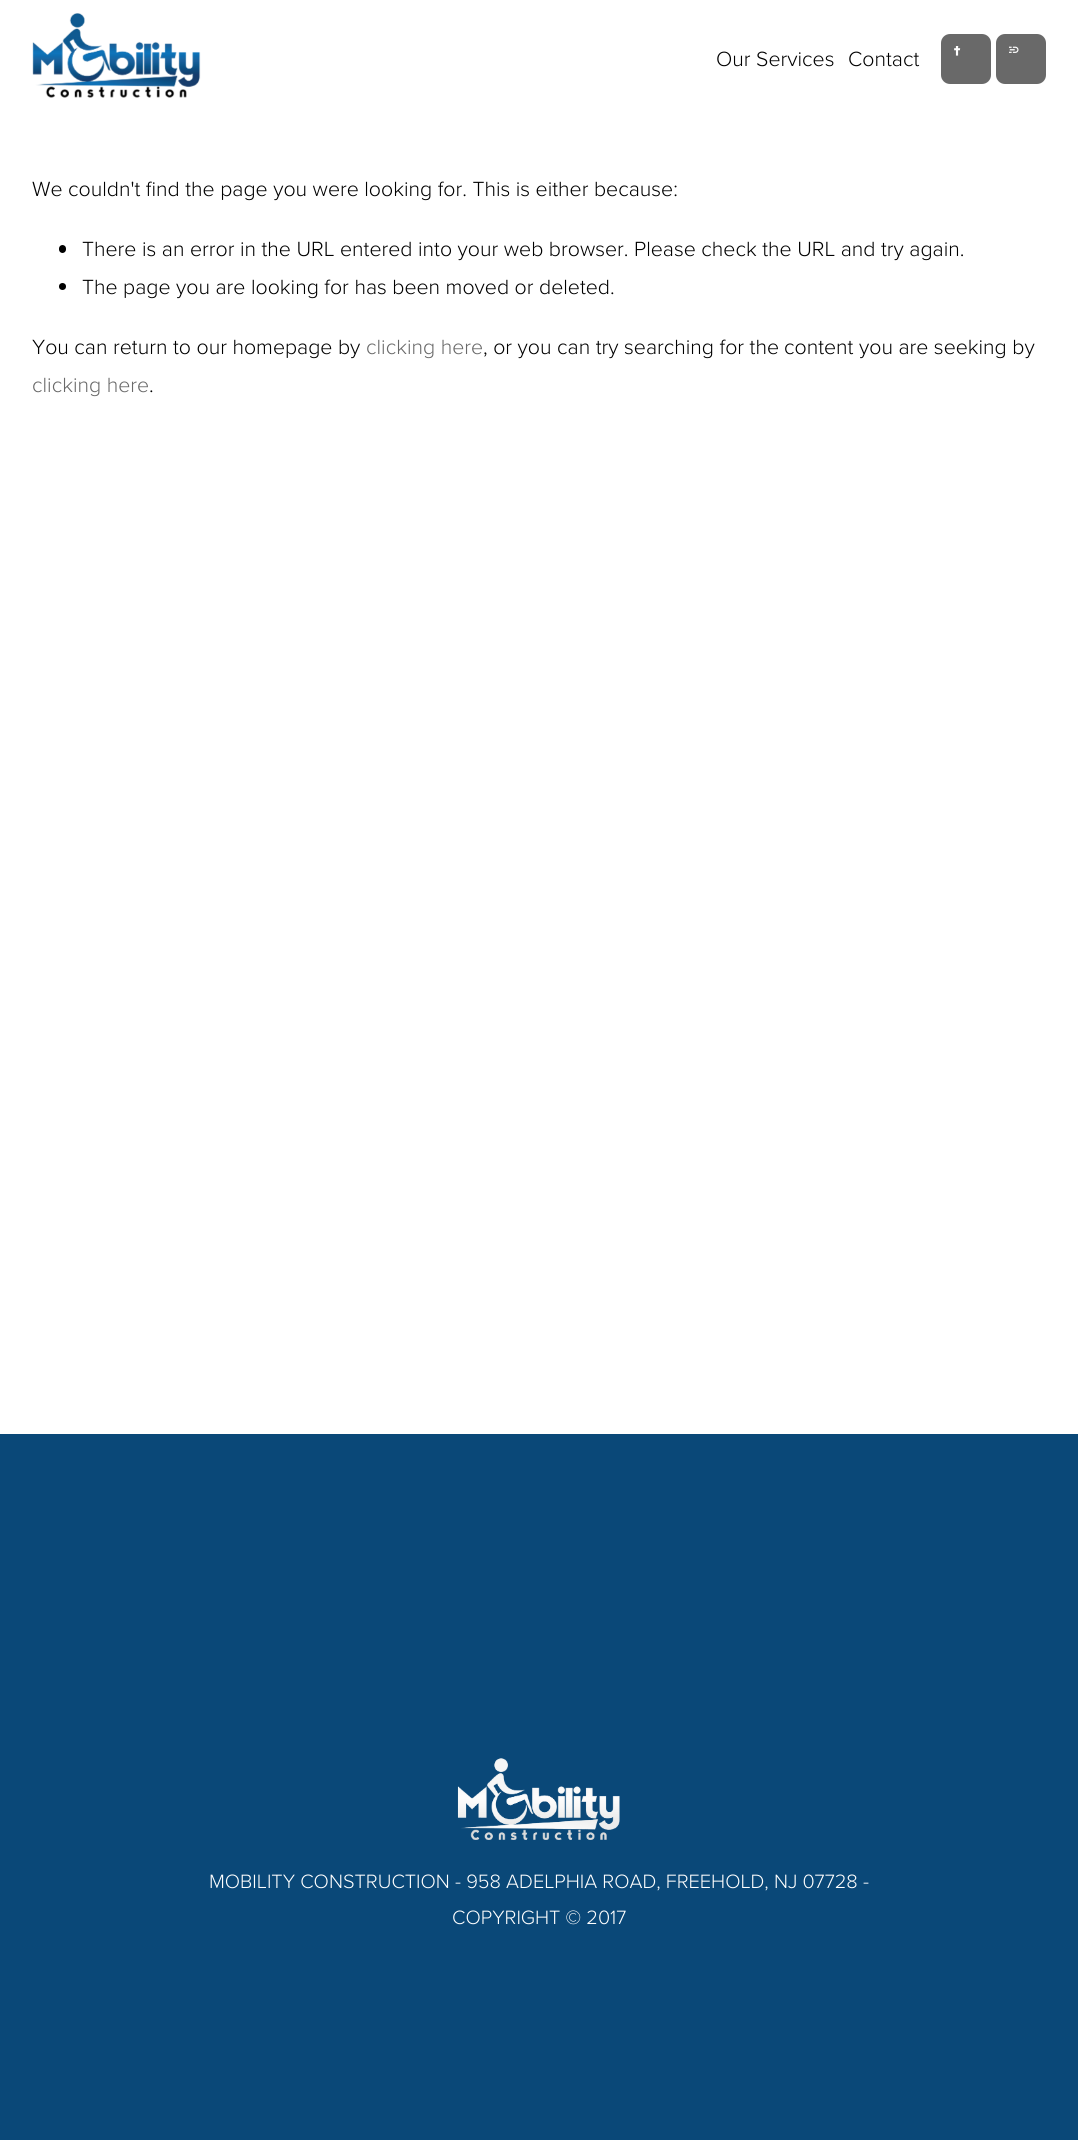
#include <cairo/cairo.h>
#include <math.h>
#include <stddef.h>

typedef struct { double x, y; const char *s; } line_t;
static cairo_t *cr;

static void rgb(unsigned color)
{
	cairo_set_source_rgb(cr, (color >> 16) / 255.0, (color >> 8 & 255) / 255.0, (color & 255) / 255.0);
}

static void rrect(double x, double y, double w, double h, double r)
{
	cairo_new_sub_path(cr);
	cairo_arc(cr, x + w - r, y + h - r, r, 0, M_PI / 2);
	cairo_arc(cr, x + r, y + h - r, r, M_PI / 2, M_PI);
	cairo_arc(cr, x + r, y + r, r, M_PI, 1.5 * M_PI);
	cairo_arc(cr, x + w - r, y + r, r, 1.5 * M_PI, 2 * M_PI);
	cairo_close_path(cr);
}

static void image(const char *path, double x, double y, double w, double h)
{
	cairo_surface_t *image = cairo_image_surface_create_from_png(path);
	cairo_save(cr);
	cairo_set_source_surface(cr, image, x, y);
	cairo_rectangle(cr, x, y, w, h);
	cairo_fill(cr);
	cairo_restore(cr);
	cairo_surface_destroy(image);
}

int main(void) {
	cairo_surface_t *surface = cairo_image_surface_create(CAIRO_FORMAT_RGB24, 1078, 2140);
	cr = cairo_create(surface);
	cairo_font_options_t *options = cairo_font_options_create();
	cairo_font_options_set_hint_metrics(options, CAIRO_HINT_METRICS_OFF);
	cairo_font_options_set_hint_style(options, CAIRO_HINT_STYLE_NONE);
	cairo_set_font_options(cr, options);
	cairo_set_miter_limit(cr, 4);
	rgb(0xffffff);
	cairo_paint(cr);
	image("img/1.png", 32, 13, 169, 85);
	rgb(0x696969);
	rrect(941, 34, 50, 50, 9);
	cairo_fill(cr);
	image("img/2.png", 954, 46, 7, 10);
	rrect(996, 34, 50, 50, 9);
	cairo_fill(cr);
	image("img/3.png", 1009, 46, 10, 7);
	rgb(0x000000);
	rrect(59, 245, 7, 8, 3.5);
	cairo_fill(cr);
	cairo_arc(cr, 62.5, 286.5, 3.5, 0, 2 * M_PI);
	cairo_fill(cr);
	rgb(0x0a4878);
	cairo_rectangle(cr, 0, 1434, 1078, 706);
	cairo_fill(cr);
	image("img/4.png", 457, 1758, 163, 82);
	cairo_select_font_face(cr, "Proxima Nova Light", CAIRO_FONT_SLANT_NORMAL, CAIRO_FONT_WEIGHT_NORMAL);
	cairo_set_font_size(cr, 21.3);
	rgb(0x000000);
	{
		static const line_t items[] = {
			{716, 66, "Our Services"},
			{848, 66, "Contact"},
			{32, 196, "We couldn't find the page you were looking for. This is either because:"},
			{82, 256, "There is an error in the URL entered into your web browser. Please check the URL and try again."},
			{82, 294, "The page you are looking for has been moved or deleted."},
			{32, 354, "You can return to our homepage by"},
		};
		for (size_t i = 0; i < sizeof items / sizeof *items; i++) {
			cairo_move_to(cr, items[i].x, items[i].y);
			cairo_show_text(cr, items[i].s);
		}
	}
	rgb(0x696969);
	cairo_move_to(cr, 366, 354);
	cairo_show_text(cr, "clicking here");
	rgb(0x000000);
	cairo_move_to(cr, 483, 354);
	cairo_show_text(cr, ", or you can try searching for the");
	cairo_move_to(cr, 784, 354);
	cairo_show_text(cr, "content you are seeking by");
	rgb(0x696969);
	cairo_move_to(cr, 32, 392);
	cairo_show_text(cr, "clicking here");
	rgb(0x000000);
	cairo_move_to(cr, 149, 392);
	cairo_show_text(cr, ".");
	cairo_set_font_size(cr, 20);
	rgb(0xffffff);
	cairo_move_to(cr, 209, 1888);
	cairo_show_text(cr, "MOBILITY CONSTRUCTION - 958 ADELPHIA ROAD, FREEHOLD, NJ 07728 -");
	cairo_move_to(cr, 452, 1924);
	cairo_show_text(cr, "COPYRIGHT © 2017");
	cairo_surface_write_to_png(surface, "page.png");
	cairo_font_options_destroy(options);
	cairo_destroy(cr);
	cairo_surface_destroy(surface);
	return 0;
}
